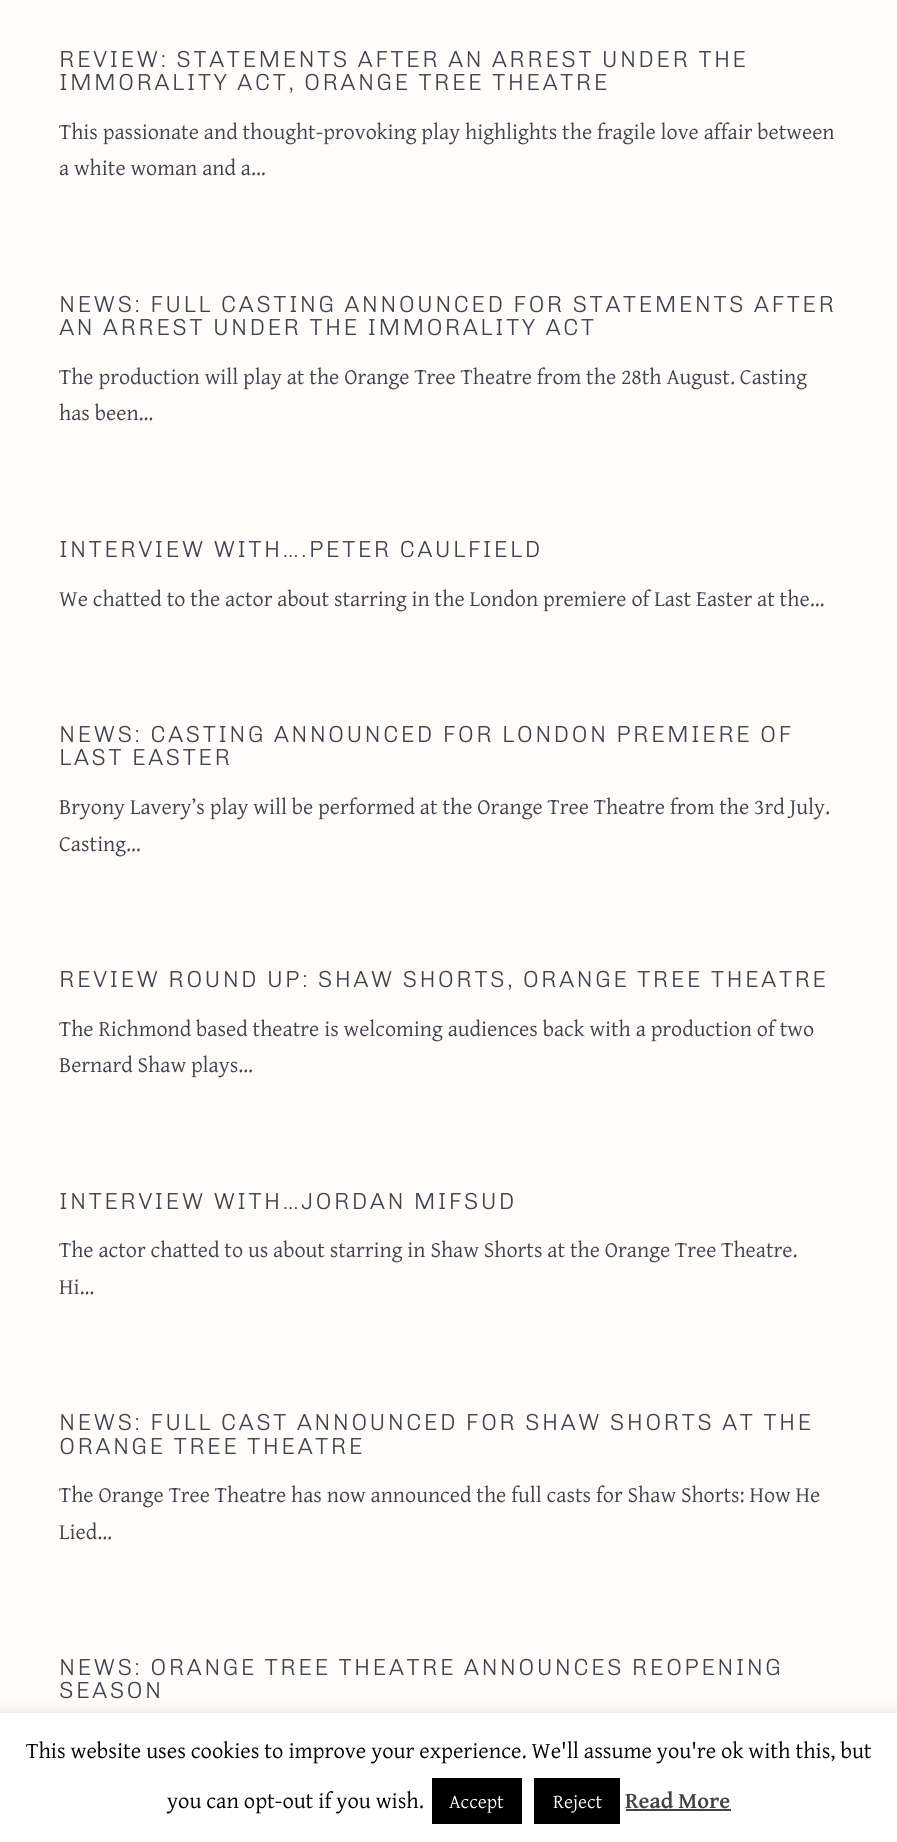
#include <cairo/cairo.h>
#include <math.h>
#include <stddef.h>

typedef struct { double x, y, w, h; unsigned color; } box_t;
static cairo_t *cr;

static void rgb(unsigned color)
{
	cairo_set_source_rgb(cr, (color >> 16) / 255.0, (color >> 8 & 255) / 255.0, (color & 255) / 255.0);
}

static void tracked(double x, double y, const char *s, double letter, double word)
{
	cairo_move_to(cr, x, y);
	while (*s) {
		char ch[5] = {0};
		int n = 0;
		do ch[n++] = *s++; while ((*s & 0xC0) == 0x80);
		cairo_show_text(cr, ch);
		cairo_rel_move_to(cr, letter + word * (*ch == ' '), 0);
	}
}

static void rrect(double x, double y, double w, double h, double r)
{
	cairo_new_sub_path(cr);
	cairo_arc(cr, x + w - r, y + h - r, r, 0, M_PI / 2);
	cairo_arc(cr, x + r, y + h - r, r, M_PI / 2, M_PI);
	cairo_arc(cr, x + r, y + r, r, M_PI, 1.5 * M_PI);
	cairo_arc(cr, x + w - r, y + r, r, 1.5 * M_PI, 2 * M_PI);
	cairo_close_path(cr);
}

static void soft_shadow(double x, double y, double w, double h, double r, double blur, double alpha)
{
	cairo_push_group_with_content(cr, CAIRO_CONTENT_ALPHA);
	cairo_set_operator(cr, CAIRO_OPERATOR_SOURCE);
	for (int i = 15; i >= -15 && fmin(w, h) + blur * i / 3 > 0; i -= 2) {
		double e = blur * i / 6;
		cairo_set_source_rgba(cr, 0, 0, 0, alpha * erfc((i - 1) / 8.5) / 2);
		rrect(x - e, y - e, w + 2 * e, h + 2 * e, fmax(0, fmin(r + e + blur * .6, fmin(w, h) / 2 + e)));
		cairo_fill(cr);
	}
	cairo_pattern_t *soft = cairo_pop_group(cr);
	cairo_mask(cr, soft);
	cairo_pattern_destroy(soft);
}

int main(void) {
	cairo_surface_t *surface = cairo_image_surface_create(CAIRO_FORMAT_RGB24, 897, 1842);
	cr = cairo_create(surface);
	cairo_font_options_t *options = cairo_font_options_create();
	cairo_font_options_set_hint_metrics(options, CAIRO_HINT_METRICS_OFF);
	cairo_font_options_set_hint_style(options, CAIRO_HINT_STYLE_NONE);
	cairo_set_font_options(cr, options);
	cairo_set_miter_limit(cr, 4);
	rgb(0xfffcf9);
	cairo_paint(cr);
	rgb(0xacabab);
	soft_shadow(0, 1712, 897, 129, 0, 7.5, 0.3);
	{
		static const box_t items[] = {
			{0, 1713, 897, 129, 0xffffff},
			{432, 1778, 90, 46, 0x000000},
			{534, 1778, 86, 46, 0x000000},
			{626, 1809, 105, 2, 0x444444},
		};
		for (size_t i = 0; i < sizeof items / sizeof *items; i++) {
			rgb(items[i].color);
			cairo_rectangle(cr, items[i].x, items[i].y, items[i].w, items[i].h);
			cairo_fill(cr);
		}
	}
	cairo_select_font_face(cr, "Chivo ExtraLight", CAIRO_FONT_SLANT_NORMAL, CAIRO_FONT_WEIGHT_NORMAL);
	cairo_set_font_size(cr, 23.25);
	rgb(0x404350);
	tracked(59, 67, "REVIEW: STATEMENTS AFTER AN ARREST UNDER THE", 2.3, 0);
	tracked(59, 90, "IMMORALITY ACT, ORANGE TREE THEATRE", 2.3, 0);
	cairo_select_font_face(cr, "Gentium Plus", CAIRO_FONT_SLANT_NORMAL, CAIRO_FONT_WEIGHT_NORMAL);
	cairo_set_font_size(cr, 22.1);
	cairo_move_to(cr, 59, 139);
	cairo_show_text(cr, "This passionate and thought-provoking play highlights the fragile love affair between");
	cairo_move_to(cr, 59, 175);
	cairo_show_text(cr, "a white woman and a…");
	cairo_select_font_face(cr, "Chivo ExtraLight", CAIRO_FONT_SLANT_NORMAL, CAIRO_FONT_WEIGHT_NORMAL);
	cairo_set_font_size(cr, 23.25);
	tracked(59, 312, "NEWS: FULL CASTING ANNOUNCED FOR STATEMENTS AFTER", 2.3, 0);
	tracked(59, 335, "AN ARREST UNDER THE IMMORALITY ACT", 2.3, 0);
	cairo_select_font_face(cr, "Gentium Plus", CAIRO_FONT_SLANT_NORMAL, CAIRO_FONT_WEIGHT_NORMAL);
	cairo_set_font_size(cr, 22.1);
	cairo_move_to(cr, 59, 384);
	cairo_show_text(cr, "The production will play at the Orange Tree Theatre from the 28th August. Casting");
	cairo_move_to(cr, 59, 420);
	cairo_show_text(cr, "has been…");
	cairo_select_font_face(cr, "Chivo ExtraLight", CAIRO_FONT_SLANT_NORMAL, CAIRO_FONT_WEIGHT_NORMAL);
	cairo_set_font_size(cr, 23.25);
	tracked(59, 557, "INTERVIEW WITH….PETER CAULFIELD", 2.3, 0);
	cairo_select_font_face(cr, "Gentium Plus", CAIRO_FONT_SLANT_NORMAL, CAIRO_FONT_WEIGHT_NORMAL);
	cairo_set_font_size(cr, 22.1);
	cairo_move_to(cr, 59, 606);
	cairo_show_text(cr, "We chatted to the actor about starring in the London premiere of Last Easter at the…");
	cairo_select_font_face(cr, "Chivo ExtraLight", CAIRO_FONT_SLANT_NORMAL, CAIRO_FONT_WEIGHT_NORMAL);
	cairo_set_font_size(cr, 23.25);
	tracked(59, 742, "NEWS: CASTING ANNOUNCED FOR LONDON PREMIERE OF", 2.3, 0);
	tracked(59, 765, "LAST EASTER", 2.3, 0);
	cairo_select_font_face(cr, "Gentium Plus", CAIRO_FONT_SLANT_NORMAL, CAIRO_FONT_WEIGHT_NORMAL);
	cairo_set_font_size(cr, 22.1);
	cairo_move_to(cr, 59, 814);
	cairo_show_text(cr, "Bryony Lavery’s play will be performed at the Orange Tree Theatre from the 3rd July.");
	cairo_move_to(cr, 59, 851);
	cairo_show_text(cr, "Casting…");
	cairo_select_font_face(cr, "Chivo ExtraLight", CAIRO_FONT_SLANT_NORMAL, CAIRO_FONT_WEIGHT_NORMAL);
	cairo_set_font_size(cr, 23.25);
	tracked(59, 987, "REVIEW ROUND UP: SHAW SHORTS, ORANGE TREE THEATRE", 2.3, 0);
	cairo_select_font_face(cr, "Gentium Plus", CAIRO_FONT_SLANT_NORMAL, CAIRO_FONT_WEIGHT_NORMAL);
	cairo_set_font_size(cr, 22.1);
	cairo_move_to(cr, 59, 1036);
	cairo_show_text(cr, "The Richmond based theatre is welcoming audiences back with a production of two");
	cairo_move_to(cr, 59, 1072);
	cairo_show_text(cr, "Bernard Shaw plays…");
	cairo_select_font_face(cr, "Chivo ExtraLight", CAIRO_FONT_SLANT_NORMAL, CAIRO_FONT_WEIGHT_NORMAL);
	cairo_set_font_size(cr, 23.25);
	tracked(59, 1209, "INTERVIEW WITH…JORDAN MIFSUD", 2.3, 0);
	cairo_select_font_face(cr, "Gentium Plus", CAIRO_FONT_SLANT_NORMAL, CAIRO_FONT_WEIGHT_NORMAL);
	cairo_set_font_size(cr, 22.1);
	cairo_move_to(cr, 59, 1257);
	cairo_show_text(cr, "The actor chatted to us about starring in Shaw Shorts at the Orange Tree Theatre.");
	cairo_move_to(cr, 59, 1294);
	cairo_show_text(cr, "Hi…");
	cairo_select_font_face(cr, "Chivo ExtraLight", CAIRO_FONT_SLANT_NORMAL, CAIRO_FONT_WEIGHT_NORMAL);
	cairo_set_font_size(cr, 23.25);
	tracked(59, 1430, "NEWS: FULL CAST ANNOUNCED FOR SHAW SHORTS AT THE", 2.3, 0);
	tracked(59, 1454, "ORANGE TREE THEATRE", 2.3, 0);
	cairo_select_font_face(cr, "Gentium Plus", CAIRO_FONT_SLANT_NORMAL, CAIRO_FONT_WEIGHT_NORMAL);
	cairo_set_font_size(cr, 22.1);
	cairo_move_to(cr, 59, 1502);
	cairo_show_text(cr, "The Orange Tree Theatre has now announced the full casts for Shaw Shorts: How He");
	cairo_move_to(cr, 59, 1539);
	cairo_show_text(cr, "Lied…");
	cairo_select_font_face(cr, "Chivo ExtraLight", CAIRO_FONT_SLANT_NORMAL, CAIRO_FONT_WEIGHT_NORMAL);
	cairo_set_font_size(cr, 23.25);
	tracked(59, 1675, "NEWS: ORANGE TREE THEATRE ANNOUNCES REOPENING", 2.3, 0);
	tracked(59, 1698, "SEASON", 2.3, 0);
	cairo_select_font_face(cr, "Gentium Plus", CAIRO_FONT_SLANT_NORMAL, CAIRO_FONT_WEIGHT_NORMAL);
	cairo_set_font_size(cr, 22.5);
	rgb(0x000000);
	cairo_move_to(cr, 26, 1758);
	cairo_show_text(cr, "This website uses cookies to improve your experience. We'll assume you're ok with this, but");
	cairo_move_to(cr, 167, 1808);
	cairo_show_text(cr, "you can opt-out if you wish.");
	cairo_set_font_size(cr, 19.5);
	rgb(0xffffff);
	cairo_move_to(cr, 449, 1808);
	cairo_show_text(cr, "Accept");
	cairo_move_to(cr, 553, 1808);
	cairo_show_text(cr, "Reject");
	cairo_select_font_face(cr, "Gentium Plus", CAIRO_FONT_SLANT_NORMAL, CAIRO_FONT_WEIGHT_BOLD);
	cairo_set_font_size(cr, 22.5);
	rgb(0x444444);
	cairo_move_to(cr, 625, 1808);
	cairo_show_text(cr, "Read More");
	cairo_surface_write_to_png(surface, "page.png");
	cairo_font_options_destroy(options);
	cairo_destroy(cr);
	cairo_surface_destroy(surface);
	return 0;
}
